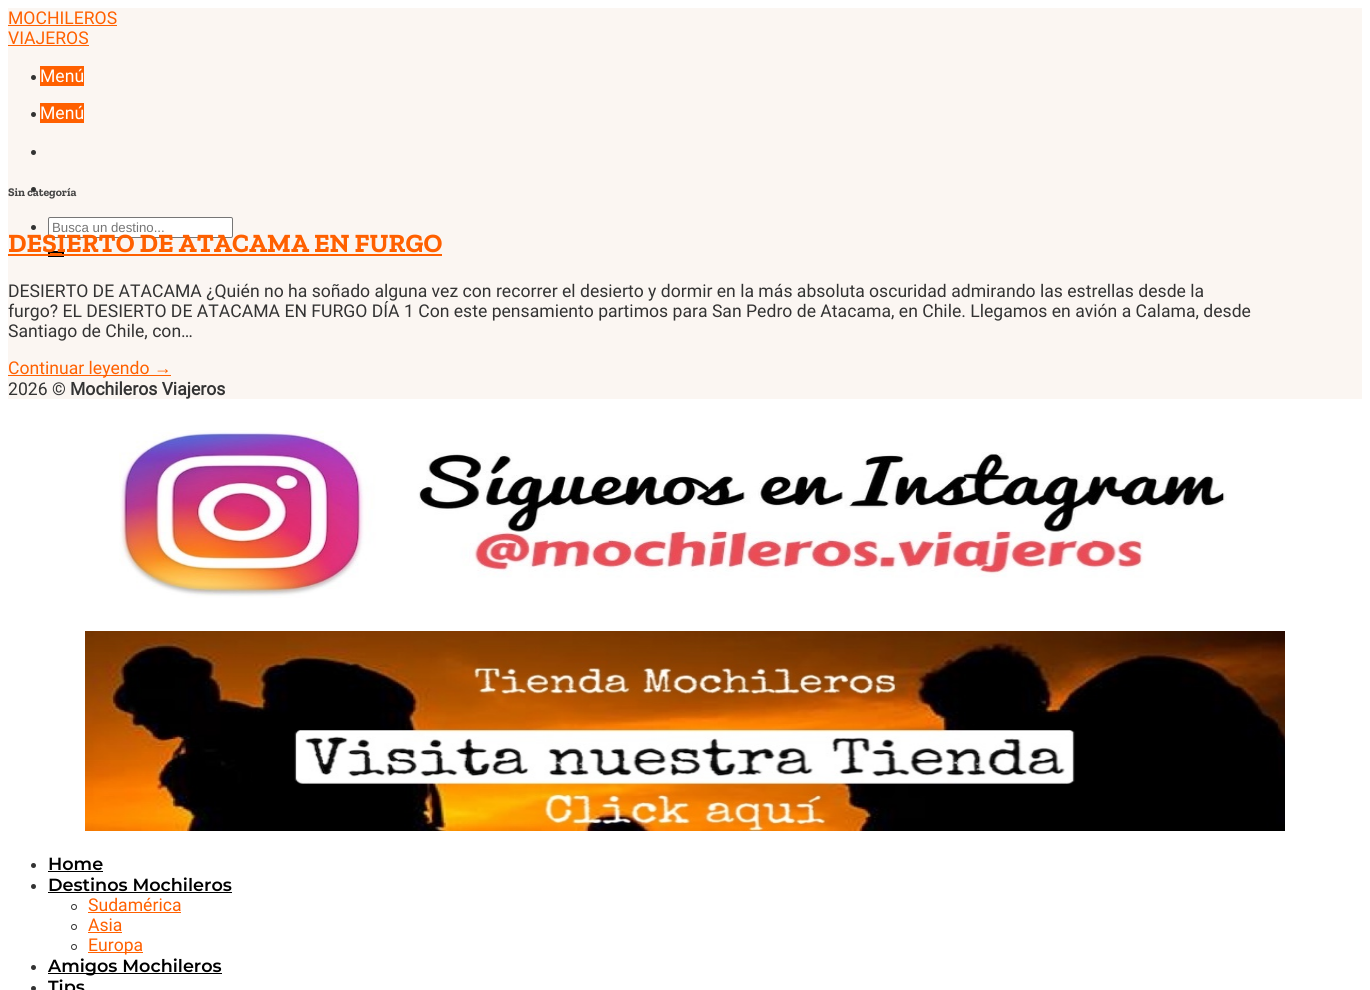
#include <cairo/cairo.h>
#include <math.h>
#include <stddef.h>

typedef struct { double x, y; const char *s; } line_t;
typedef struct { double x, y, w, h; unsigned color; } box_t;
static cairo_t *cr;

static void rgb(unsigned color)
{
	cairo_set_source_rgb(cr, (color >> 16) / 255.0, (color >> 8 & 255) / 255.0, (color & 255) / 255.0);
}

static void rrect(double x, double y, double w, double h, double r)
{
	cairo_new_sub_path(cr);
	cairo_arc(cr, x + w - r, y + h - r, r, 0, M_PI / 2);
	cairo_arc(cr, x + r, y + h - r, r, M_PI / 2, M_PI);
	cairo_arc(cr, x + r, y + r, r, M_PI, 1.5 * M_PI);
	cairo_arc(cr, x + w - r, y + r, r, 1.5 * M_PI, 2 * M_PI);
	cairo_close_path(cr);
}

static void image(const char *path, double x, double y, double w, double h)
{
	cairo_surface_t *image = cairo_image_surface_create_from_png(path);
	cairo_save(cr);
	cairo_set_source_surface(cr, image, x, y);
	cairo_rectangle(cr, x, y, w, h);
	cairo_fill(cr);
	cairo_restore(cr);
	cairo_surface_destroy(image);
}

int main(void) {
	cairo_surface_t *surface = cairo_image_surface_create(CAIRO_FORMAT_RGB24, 1370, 990);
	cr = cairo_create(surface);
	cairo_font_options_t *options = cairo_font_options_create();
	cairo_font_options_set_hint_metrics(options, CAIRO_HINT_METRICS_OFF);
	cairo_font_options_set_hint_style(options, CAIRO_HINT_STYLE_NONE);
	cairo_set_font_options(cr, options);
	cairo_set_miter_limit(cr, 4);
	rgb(0xffffff);
	cairo_paint(cr);
	{
		static const box_t items[] = {
			{8, 8, 1354, 391, 0xfbf6f2},
			{8, 25, 109, 1, 0xff6000},
			{8, 45, 81, 1, 0xff6000},
		};
		for (size_t i = 0; i < sizeof items / sizeof *items; i++) {
			rgb(items[i].color);
			cairo_rectangle(cr, items[i].x, items[i].y, items[i].w, items[i].h);
			cairo_fill(cr);
		}
	}
	rgb(0x333333);
	cairo_arc(cr, 33.5, 77.5, 2.5, 0, 2 * M_PI);
	cairo_fill(cr);
	rgb(0xff6000);
	cairo_rectangle(cr, 40, 66, 44, 20);
	cairo_fill(cr);
	rgb(0x333333);
	cairo_arc(cr, 33.5, 114.5, 2.5, 0, 2 * M_PI);
	cairo_fill(cr);
	rgb(0xff6000);
	cairo_rectangle(cr, 40, 103, 44, 20);
	cairo_fill(cr);
	rgb(0x333333);
	cairo_arc(cr, 33.5, 152.5, 2.5, 0, 2 * M_PI);
	cairo_fill(cr);
	cairo_arc(cr, 33.5, 189.5, 2.5, 0, 2 * M_PI);
	cairo_fill(cr);
	cairo_arc(cr, 33.5, 227.5, 2.5, 0, 2 * M_PI);
	cairo_fill(cr);
	rgb(0xffffff);
	rrect(48.5, 217.5, 184, 20, 1.5);
	cairo_fill_preserve(cr);
	rgb(0x767676);
	cairo_set_line_width(cr, 1);
	cairo_stroke(cr);
	rgb(0xff6600);
	cairo_rectangle(cr, 48, 253, 16, 1);
	cairo_fill(cr);
	cairo_rectangle(cr, 49, 252, 14, 4);
	rgb(0x000000);
	cairo_set_line_width(cr, 2);
	cairo_stroke(cr);
	rgb(0xff6000);
	cairo_rectangle(cr, 8, 254, 434, 2);
	cairo_fill(cr);
	cairo_rectangle(cr, 8, 375, 163, 1);
	cairo_fill(cr);
	image("img/1.png", 119, 430, 1108, 168);
	image("img/2.png", 85, 631, 1200, 200);
	rgb(0x333333);
	cairo_arc(cr, 33.5, 865.5, 2.5, 0, 2 * M_PI);
	cairo_fill(cr);
	rgb(0x000000);
	cairo_rectangle(cr, 48, 871, 55, 1);
	cairo_fill(cr);
	rgb(0x333333);
	cairo_arc(cr, 33.5, 886.5, 2.5, 0, 2 * M_PI);
	cairo_fill(cr);
	rgb(0x000000);
	cairo_rectangle(cr, 48, 892, 184, 1);
	cairo_fill(cr);
	cairo_arc(cr, 74, 907, 2.5, 0, 2 * M_PI);
	rgb(0x333333);
	cairo_set_line_width(cr, 1);
	cairo_stroke(cr);
	rgb(0xff6000);
	cairo_rectangle(cr, 88, 912, 93, 1);
	cairo_fill(cr);
	cairo_arc(cr, 74, 927, 2.5, 0, 2 * M_PI);
	rgb(0x333333);
	cairo_stroke(cr);
	rgb(0xff6000);
	cairo_rectangle(cr, 88, 932, 34, 1);
	cairo_fill(cr);
	cairo_arc(cr, 74, 947, 2.5, 0, 2 * M_PI);
	rgb(0x333333);
	cairo_stroke(cr);
	rgb(0xff6000);
	cairo_rectangle(cr, 88, 952, 55, 1);
	cairo_fill(cr);
	rgb(0x333333);
	cairo_arc(cr, 33.5, 967.5, 2.5, 0, 2 * M_PI);
	cairo_fill(cr);
	rgb(0x000000);
	cairo_rectangle(cr, 48, 973, 174, 1);
	cairo_fill(cr);
	rgb(0x333333);
	cairo_arc(cr, 33.5, 988.5, 2.5, 0, 2 * M_PI);
	cairo_fill(cr);
	cairo_select_font_face(cr, "Roboto", CAIRO_FONT_SLANT_NORMAL, CAIRO_FONT_WEIGHT_NORMAL);
	cairo_set_font_size(cr, 17.6);
	rgb(0xff6000);
	cairo_move_to(cr, 8, 24);
	cairo_show_text(cr, "MOCHILEROS");
	cairo_move_to(cr, 8, 44);
	cairo_show_text(cr, "VIAJEROS");
	rgb(0xffffff);
	cairo_move_to(cr, 40, 82);
	cairo_show_text(cr, "Menú");
	cairo_move_to(cr, 40, 119);
	cairo_show_text(cr, "Menú");
	cairo_select_font_face(cr, "Liberation Sans", CAIRO_FONT_SLANT_NORMAL, CAIRO_FONT_WEIGHT_NORMAL);
	cairo_set_font_size(cr, 13.25);
	rgb(0x757575);
	cairo_move_to(cr, 52, 232);
	cairo_show_text(cr, "Busca un destino...");
	cairo_select_font_face(cr, "Zilla Slab", CAIRO_FONT_SLANT_NORMAL, CAIRO_FONT_WEIGHT_BOLD);
	cairo_set_font_size(cr, 11.75);
	rgb(0x444444);
	cairo_move_to(cr, 8, 196);
	cairo_show_text(cr, "Sin categoría");
	cairo_set_font_size(cr, 26.4);
	rgb(0xff6000);
	cairo_move_to(cr, 8, 252);
	cairo_show_text(cr, "DESIERTO DE ATACAMA EN FURGO");
	cairo_select_font_face(cr, "Roboto", CAIRO_FONT_SLANT_NORMAL, CAIRO_FONT_WEIGHT_NORMAL);
	cairo_set_font_size(cr, 17.6);
	rgb(0x333333);
	{
		static const line_t items[] = {
			{8, 297, "DESIERTO DE ATACAMA ¿Quién no ha soñado alguna vez con recorrer el desierto y dormir en la más absoluta oscuridad admirando las estrellas desde la"},
			{8, 317, "furgo? EL DESIERTO DE ATACAMA EN FURGO DÍA 1 Con este pensamiento partimos para San Pedro de Atacama, en Chile. Llegamos en avión a Calama, desde"},
			{8, 337, "Santiago de Chile, con…"},
		};
		for (size_t i = 0; i < sizeof items / sizeof *items; i++) {
			cairo_move_to(cr, items[i].x, items[i].y);
			cairo_show_text(cr, items[i].s);
		}
	}
	rgb(0xff6000);
	cairo_move_to(cr, 8, 374);
	cairo_show_text(cr, "Continuar leyendo");
	cairo_select_font_face(cr, "Liberation Sans", CAIRO_FONT_SLANT_NORMAL, CAIRO_FONT_WEIGHT_NORMAL);
	cairo_move_to(cr, 154, 374);
	cairo_show_text(cr, "→");
	cairo_select_font_face(cr, "Roboto", CAIRO_FONT_SLANT_NORMAL, CAIRO_FONT_WEIGHT_NORMAL);
	rgb(0x333333);
	cairo_move_to(cr, 8, 395);
	cairo_show_text(cr, "2026 ©");
	cairo_select_font_face(cr, "Roboto", CAIRO_FONT_SLANT_NORMAL, CAIRO_FONT_WEIGHT_BOLD);
	cairo_move_to(cr, 70, 395);
	cairo_show_text(cr, "Mochileros Viajeros");
	cairo_select_font_face(cr, "Montserrat SemiBold", CAIRO_FONT_SLANT_NORMAL, CAIRO_FONT_WEIGHT_NORMAL);
	rgb(0x000000);
	cairo_move_to(cr, 48, 870);
	cairo_show_text(cr, "Home");
	cairo_move_to(cr, 48, 891);
	cairo_show_text(cr, "Destinos Mochileros");
	cairo_select_font_face(cr, "Roboto", CAIRO_FONT_SLANT_NORMAL, CAIRO_FONT_WEIGHT_NORMAL);
	rgb(0xff6000);
	{
		static const line_t items[] = {
			{88, 911, "Sudamérica"},
			{88, 931, "Asia"},
			{88, 951, "Europa"},
		};
		for (size_t i = 0; i < sizeof items / sizeof *items; i++) {
			cairo_move_to(cr, items[i].x, items[i].y);
			cairo_show_text(cr, items[i].s);
		}
	}
	cairo_select_font_face(cr, "Montserrat SemiBold", CAIRO_FONT_SLANT_NORMAL, CAIRO_FONT_WEIGHT_NORMAL);
	rgb(0x000000);
	cairo_move_to(cr, 48, 972);
	cairo_show_text(cr, "Amigos Mochileros");
	cairo_move_to(cr, 48, 993);
	cairo_show_text(cr, "Tips");
	cairo_surface_write_to_png(surface, "page.png");
	cairo_font_options_destroy(options);
	cairo_destroy(cr);
	cairo_surface_destroy(surface);
	return 0;
}
